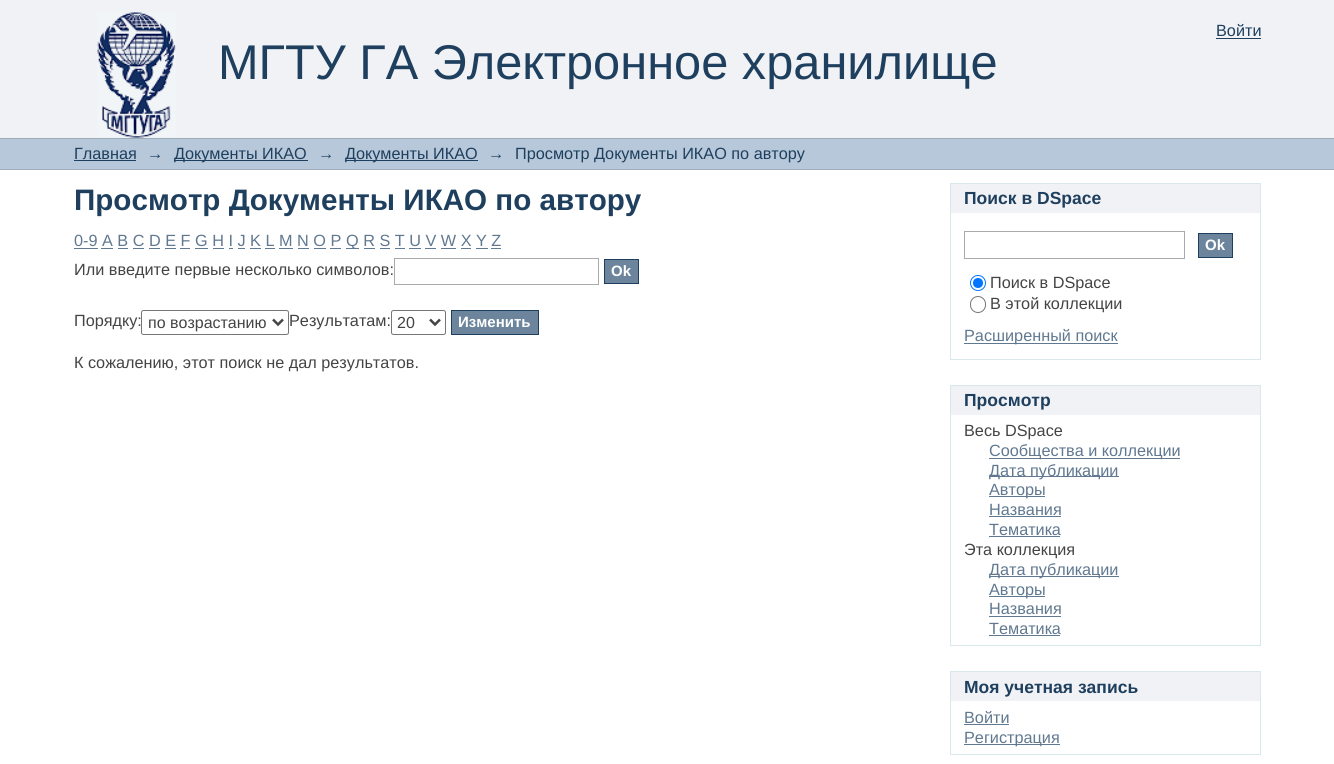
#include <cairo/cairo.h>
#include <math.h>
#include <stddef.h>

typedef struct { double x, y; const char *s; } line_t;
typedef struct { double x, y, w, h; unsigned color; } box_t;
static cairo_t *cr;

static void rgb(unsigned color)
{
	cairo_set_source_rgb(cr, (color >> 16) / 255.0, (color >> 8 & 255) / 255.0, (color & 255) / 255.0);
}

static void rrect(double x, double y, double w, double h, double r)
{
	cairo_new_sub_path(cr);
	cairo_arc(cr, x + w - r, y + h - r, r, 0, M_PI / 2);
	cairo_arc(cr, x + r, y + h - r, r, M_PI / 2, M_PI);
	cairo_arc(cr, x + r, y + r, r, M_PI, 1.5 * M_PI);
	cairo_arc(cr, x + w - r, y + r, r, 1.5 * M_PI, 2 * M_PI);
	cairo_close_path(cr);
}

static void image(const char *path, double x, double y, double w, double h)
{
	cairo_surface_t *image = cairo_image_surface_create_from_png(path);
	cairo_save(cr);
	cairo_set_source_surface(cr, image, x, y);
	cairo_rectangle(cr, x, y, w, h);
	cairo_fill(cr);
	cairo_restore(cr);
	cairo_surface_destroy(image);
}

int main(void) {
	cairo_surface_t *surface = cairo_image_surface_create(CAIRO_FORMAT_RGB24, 1334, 764);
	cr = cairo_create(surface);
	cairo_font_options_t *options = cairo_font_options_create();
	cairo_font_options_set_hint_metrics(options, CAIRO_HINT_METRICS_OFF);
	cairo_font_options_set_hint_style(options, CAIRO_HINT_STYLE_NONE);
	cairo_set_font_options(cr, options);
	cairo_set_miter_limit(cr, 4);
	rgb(0xffffff);
	cairo_paint(cr);
	rgb(0xf0f2f5);
	cairo_rectangle(cr, 0, 0, 1334, 138);
	cairo_fill(cr);
	rgb(0x1f3f5e);
	cairo_rectangle(cr, 1216, 38, 45, 1);
	cairo_fill(cr);
	image("img/1.png", 97, 12, 79, 126);
	{
		static const box_t items[] = {
			{0, 139, 1334, 30, 0xb6c8d9},
			{0, 138, 1334, 1, 0x9cacba},
			{0, 169, 1334, 1, 0x9cacba},
			{74, 160, 62, 1, 0x1f3f5e},
			{174, 160, 134, 1, 0x1f3f5e},
			{345, 160, 133, 1, 0x1f3f5e},
			{74, 248, 24, 1, 0x607890},
			{346, 248, 13, 1, 0x607890},
			{101, 248, 12, 1, 0x607890},
			{118, 248, 10, 1, 0x607890},
			{133, 248, 11, 1, 0x607890},
			{149, 248, 11, 1, 0x607890},
			{165, 248, 11, 1, 0x607890},
			{180, 248, 10, 1, 0x607890},
			{195, 248, 13, 1, 0x607890},
			{213, 248, 11, 1, 0x607890},
			{229, 248, 4, 1, 0x607890},
			{238, 248, 7, 1, 0x607890},
			{250, 248, 11, 1, 0x607890},
			{265, 248, 10, 1, 0x607890},
			{279, 248, 14, 1, 0x607890},
			{298, 248, 11, 1, 0x607890},
			{314, 248, 12, 1, 0x607890},
			{330, 248, 11, 1, 0x607890},
			{364, 248, 11, 1, 0x607890},
			{380, 248, 10, 1, 0x607890},
			{395, 248, 10, 1, 0x607890},
			{409, 248, 12, 1, 0x607890},
			{425, 248, 11, 1, 0x607890},
			{441, 248, 15, 1, 0x607890},
			{461, 248, 10, 1, 0x607890},
			{476, 248, 12, 1, 0x607890},
			{491, 248, 10, 1, 0x607890},
		};
		for (size_t i = 0; i < sizeof items / sizeof *items; i++) {
			rgb(items[i].color);
			cairo_rectangle(cr, items[i].x, items[i].y, items[i].w, items[i].h);
			cairo_fill(cr);
		}
	}
	cairo_rectangle(cr, 394.5, 258.5, 204, 26);
	rgb(0xaaaaaa);
	cairo_set_line_width(cr, 1);
	cairo_stroke(cr);
	rgb(0x6d859c);
	cairo_rectangle(cr, 604.5, 259.5, 34, 24);
	cairo_fill_preserve(cr);
	rgb(0x1f3f5e);
	cairo_stroke(cr);
	rrect(141.5, 310.5, 147, 24, 2);
	rgb(0x767676);
	cairo_stroke(cr);
	cairo_new_path(cr);
	cairo_move_to(cr, 273, 319.5);
	cairo_line_to(cr, 278, 324.5);
	cairo_line_to(cr, 283, 319.5);
	rgb(0x444444);
	cairo_set_line_width(cr, 2.5);
	cairo_stroke(cr);
	rrect(391.5, 310.5, 54, 24, 2);
	rgb(0x767676);
	cairo_set_line_width(cr, 1);
	cairo_stroke(cr);
	cairo_new_path(cr);
	cairo_move_to(cr, 430, 319.5);
	cairo_line_to(cr, 435, 324.5);
	cairo_line_to(cr, 440, 319.5);
	rgb(0x444444);
	cairo_set_line_width(cr, 2.5);
	cairo_stroke(cr);
	rgb(0x6d859c);
	cairo_rectangle(cr, 451.5, 310.5, 87, 24);
	cairo_fill_preserve(cr);
	rgb(0x1f3f5e);
	cairo_set_line_width(cr, 1);
	cairo_stroke(cr);
	{
		static const box_t items[] = {
			{951, 184, 309, 29, 0xf0f2f5},
			{950, 183, 311, 1, 0xd8e8eb},
			{1260, 183, 1, 177, 0xd8e8eb},
			{950, 183, 1, 30, 0xd8e8eb},
			{950, 359, 311, 1, 0xd8e8eb},
			{950, 213, 1, 147, 0xd8e8eb},
		};
		for (size_t i = 0; i < sizeof items / sizeof *items; i++) {
			rgb(items[i].color);
			cairo_rectangle(cr, items[i].x, items[i].y, items[i].w, items[i].h);
			cairo_fill(cr);
		}
	}
	cairo_rectangle(cr, 964.5, 231.5, 220, 27);
	rgb(0xaaaaaa);
	cairo_stroke(cr);
	rgb(0x6d859c);
	cairo_rectangle(cr, 1198.5, 233.5, 34, 24);
	cairo_fill_preserve(cr);
	rgb(0x1f3f5e);
	cairo_stroke(cr);
	cairo_arc(cr, 978, 283, 7.5, 0, 2 * M_PI);
	rgb(0x0075ff);
	cairo_stroke(cr);
	cairo_arc(cr, 978, 283, 5, 0, 2 * M_PI);
	cairo_fill(cr);
	rrect(970.5, 296.5, 15, 16, 7.5);
	rgb(0x767676);
	cairo_stroke(cr);
	{
		static const box_t items[] = {
			{964, 343, 154, 1, 0x607890},
			{951, 386, 309, 29, 0xf0f2f5},
			{950, 385, 311, 1, 0xd8e8eb},
			{1260, 385, 1, 261, 0xd8e8eb},
			{950, 385, 1, 30, 0xd8e8eb},
			{950, 645, 311, 1, 0xd8e8eb},
			{950, 415, 1, 231, 0xd8e8eb},
			{989, 458, 191, 1, 0x607890},
			{989, 476, 130, 1, 0x607890},
			{989, 496, 56, 1, 0x607890},
			{989, 516, 72, 1, 0x607890},
			{989, 536, 71, 1, 0x607890},
			{989, 576, 130, 1, 0x607890},
			{989, 596, 56, 1, 0x607890},
			{989, 616, 72, 1, 0x607890},
			{989, 635, 71, 1, 0x607890},
			{951, 672, 309, 29, 0xf0f2f5},
			{950, 671, 311, 1, 0xd8e8eb},
			{1260, 671, 1, 84, 0xd8e8eb},
			{950, 671, 1, 30, 0xd8e8eb},
			{950, 754, 311, 1, 0xd8e8eb},
			{950, 701, 1, 54, 0xd8e8eb},
			{964, 724, 45, 1, 0x607890},
			{964, 744, 96, 1, 0x607890},
		};
		for (size_t i = 0; i < sizeof items / sizeof *items; i++) {
			rgb(items[i].color);
			cairo_rectangle(cr, items[i].x, items[i].y, items[i].w, items[i].h);
			cairo_fill(cr);
		}
	}
	cairo_select_font_face(cr, "Liberation Sans", CAIRO_FONT_SLANT_NORMAL, CAIRO_FONT_WEIGHT_NORMAL);
	cairo_set_font_size(cr, 16.25);
	rgb(0x1f3f5e);
	cairo_move_to(cr, 1216, 36);
	cairo_show_text(cr, "Войти");
	cairo_set_font_size(cr, 48.75);
	cairo_move_to(cr, 218, 79);
	cairo_show_text(cr, "МГТУ ГА Электронное хранилище");
	cairo_set_font_size(cr, 16.25);
	{
		static const line_t items[] = {
			{74, 159, "Главная"},
			{147, 159, "→"},
			{174, 159, "Документы ИКАО"},
			{318, 159, "→"},
			{345, 159, "Документы ИКАО"},
			{488, 159, "→"},
			{515, 159, "Просмотр Документы ИКАО по автору"},
		};
		for (size_t i = 0; i < sizeof items / sizeof *items; i++) {
			cairo_move_to(cr, items[i].x, items[i].y);
			cairo_show_text(cr, items[i].s);
		}
	}
	cairo_select_font_face(cr, "Liberation Sans", CAIRO_FONT_SLANT_NORMAL, CAIRO_FONT_WEIGHT_BOLD);
	cairo_set_font_size(cr, 29.6);
	cairo_move_to(cr, 74, 210);
	cairo_show_text(cr, "Просмотр Документы ИКАО по автору");
	cairo_select_font_face(cr, "Liberation Sans", CAIRO_FONT_SLANT_NORMAL, CAIRO_FONT_WEIGHT_NORMAL);
	cairo_set_font_size(cr, 16.25);
	rgb(0x607890);
	cairo_move_to(cr, 74, 246);
	cairo_show_text(cr, "0-9 A B C D E F G H I J K L M N O P");
	cairo_move_to(cr, 346, 246);
	cairo_show_text(cr, "Q R S T U V W X Y Z");
	rgb(0x444444);
	cairo_move_to(cr, 74, 275);
	cairo_show_text(cr, "Или введите первые несколько символов:");
	cairo_select_font_face(cr, "Liberation Sans", CAIRO_FONT_SLANT_NORMAL, CAIRO_FONT_WEIGHT_BOLD);
	cairo_set_font_size(cr, 15);
	rgb(0xffffff);
	cairo_move_to(cr, 611, 276);
	cairo_show_text(cr, "Ok");
	cairo_select_font_face(cr, "Liberation Sans", CAIRO_FONT_SLANT_NORMAL, CAIRO_FONT_WEIGHT_NORMAL);
	cairo_set_font_size(cr, 16.25);
	rgb(0x444444);
	cairo_move_to(cr, 74, 326);
	cairo_show_text(cr, "Порядку:");
	cairo_set_font_size(cr, 16);
	cairo_move_to(cr, 148, 328);
	cairo_show_text(cr, "по возрастанию");
	cairo_set_font_size(cr, 16.25);
	cairo_move_to(cr, 289, 326);
	cairo_show_text(cr, "Результатам:");
	cairo_set_font_size(cr, 16);
	cairo_move_to(cr, 397, 328);
	cairo_show_text(cr, "20");
	cairo_select_font_face(cr, "Liberation Sans", CAIRO_FONT_SLANT_NORMAL, CAIRO_FONT_WEIGHT_BOLD);
	cairo_set_font_size(cr, 15);
	rgb(0xffffff);
	cairo_move_to(cr, 458, 327);
	cairo_show_text(cr, "Изменить");
	cairo_select_font_face(cr, "Liberation Sans", CAIRO_FONT_SLANT_NORMAL, CAIRO_FONT_WEIGHT_NORMAL);
	cairo_set_font_size(cr, 16.25);
	rgb(0x444444);
	cairo_move_to(cr, 74, 368);
	cairo_show_text(cr, "К сожалению, этот поиск не дал результатов.");
	cairo_select_font_face(cr, "Liberation Sans", CAIRO_FONT_SLANT_NORMAL, CAIRO_FONT_WEIGHT_BOLD);
	cairo_set_font_size(cr, 17.5);
	rgb(0x1f3f5e);
	cairo_move_to(cr, 964, 204);
	cairo_show_text(cr, "Поиск в DSpace");
	cairo_set_font_size(cr, 15);
	rgb(0xffffff);
	cairo_move_to(cr, 1205, 250);
	cairo_show_text(cr, "Ok");
	cairo_select_font_face(cr, "Liberation Sans", CAIRO_FONT_SLANT_NORMAL, CAIRO_FONT_WEIGHT_NORMAL);
	cairo_set_font_size(cr, 16.25);
	rgb(0x444444);
	cairo_move_to(cr, 990, 288);
	cairo_show_text(cr, "Поиск в DSpace");
	cairo_move_to(cr, 990, 309);
	cairo_show_text(cr, "В этой коллекции");
	rgb(0x607890);
	cairo_move_to(cr, 964, 341);
	cairo_show_text(cr, "Расширенный поиск");
	cairo_select_font_face(cr, "Liberation Sans", CAIRO_FONT_SLANT_NORMAL, CAIRO_FONT_WEIGHT_BOLD);
	cairo_set_font_size(cr, 17.5);
	rgb(0x1f3f5e);
	cairo_move_to(cr, 964, 406);
	cairo_show_text(cr, "Просмотр");
	cairo_select_font_face(cr, "Liberation Sans", CAIRO_FONT_SLANT_NORMAL, CAIRO_FONT_WEIGHT_NORMAL);
	cairo_set_font_size(cr, 16.25);
	rgb(0x444444);
	cairo_move_to(cr, 964, 436);
	cairo_show_text(cr, "Весь DSpace");
	rgb(0x607890);
	{
		static const line_t items[] = {
			{989, 456, "Сообщества и коллекции"},
			{989, 476, "Дата публикации"},
			{989, 495, "Авторы"},
			{989, 515, "Названия"},
			{989, 535, "Тематика"},
		};
		for (size_t i = 0; i < sizeof items / sizeof *items; i++) {
			cairo_move_to(cr, items[i].x, items[i].y);
			cairo_show_text(cr, items[i].s);
		}
	}
	rgb(0x444444);
	cairo_move_to(cr, 964, 555);
	cairo_show_text(cr, "Эта коллекция");
	rgb(0x607890);
	{
		static const line_t items[] = {
			{989, 575, "Дата публикации"},
			{989, 595, "Авторы"},
			{989, 614, "Названия"},
			{989, 634, "Тематика"},
		};
		for (size_t i = 0; i < sizeof items / sizeof *items; i++) {
			cairo_move_to(cr, items[i].x, items[i].y);
			cairo_show_text(cr, items[i].s);
		}
	}
	cairo_select_font_face(cr, "Liberation Sans", CAIRO_FONT_SLANT_NORMAL, CAIRO_FONT_WEIGHT_BOLD);
	cairo_set_font_size(cr, 17.5);
	rgb(0x1f3f5e);
	cairo_move_to(cr, 964, 693);
	cairo_show_text(cr, "Моя учетная запись");
	cairo_select_font_face(cr, "Liberation Sans", CAIRO_FONT_SLANT_NORMAL, CAIRO_FONT_WEIGHT_NORMAL);
	cairo_set_font_size(cr, 16.25);
	rgb(0x607890);
	cairo_move_to(cr, 964, 723);
	cairo_show_text(cr, "Войти");
	cairo_move_to(cr, 964, 743);
	cairo_show_text(cr, "Регистрация");
	cairo_surface_write_to_png(surface, "page.png");
	cairo_font_options_destroy(options);
	cairo_destroy(cr);
	cairo_surface_destroy(surface);
	return 0;
}
